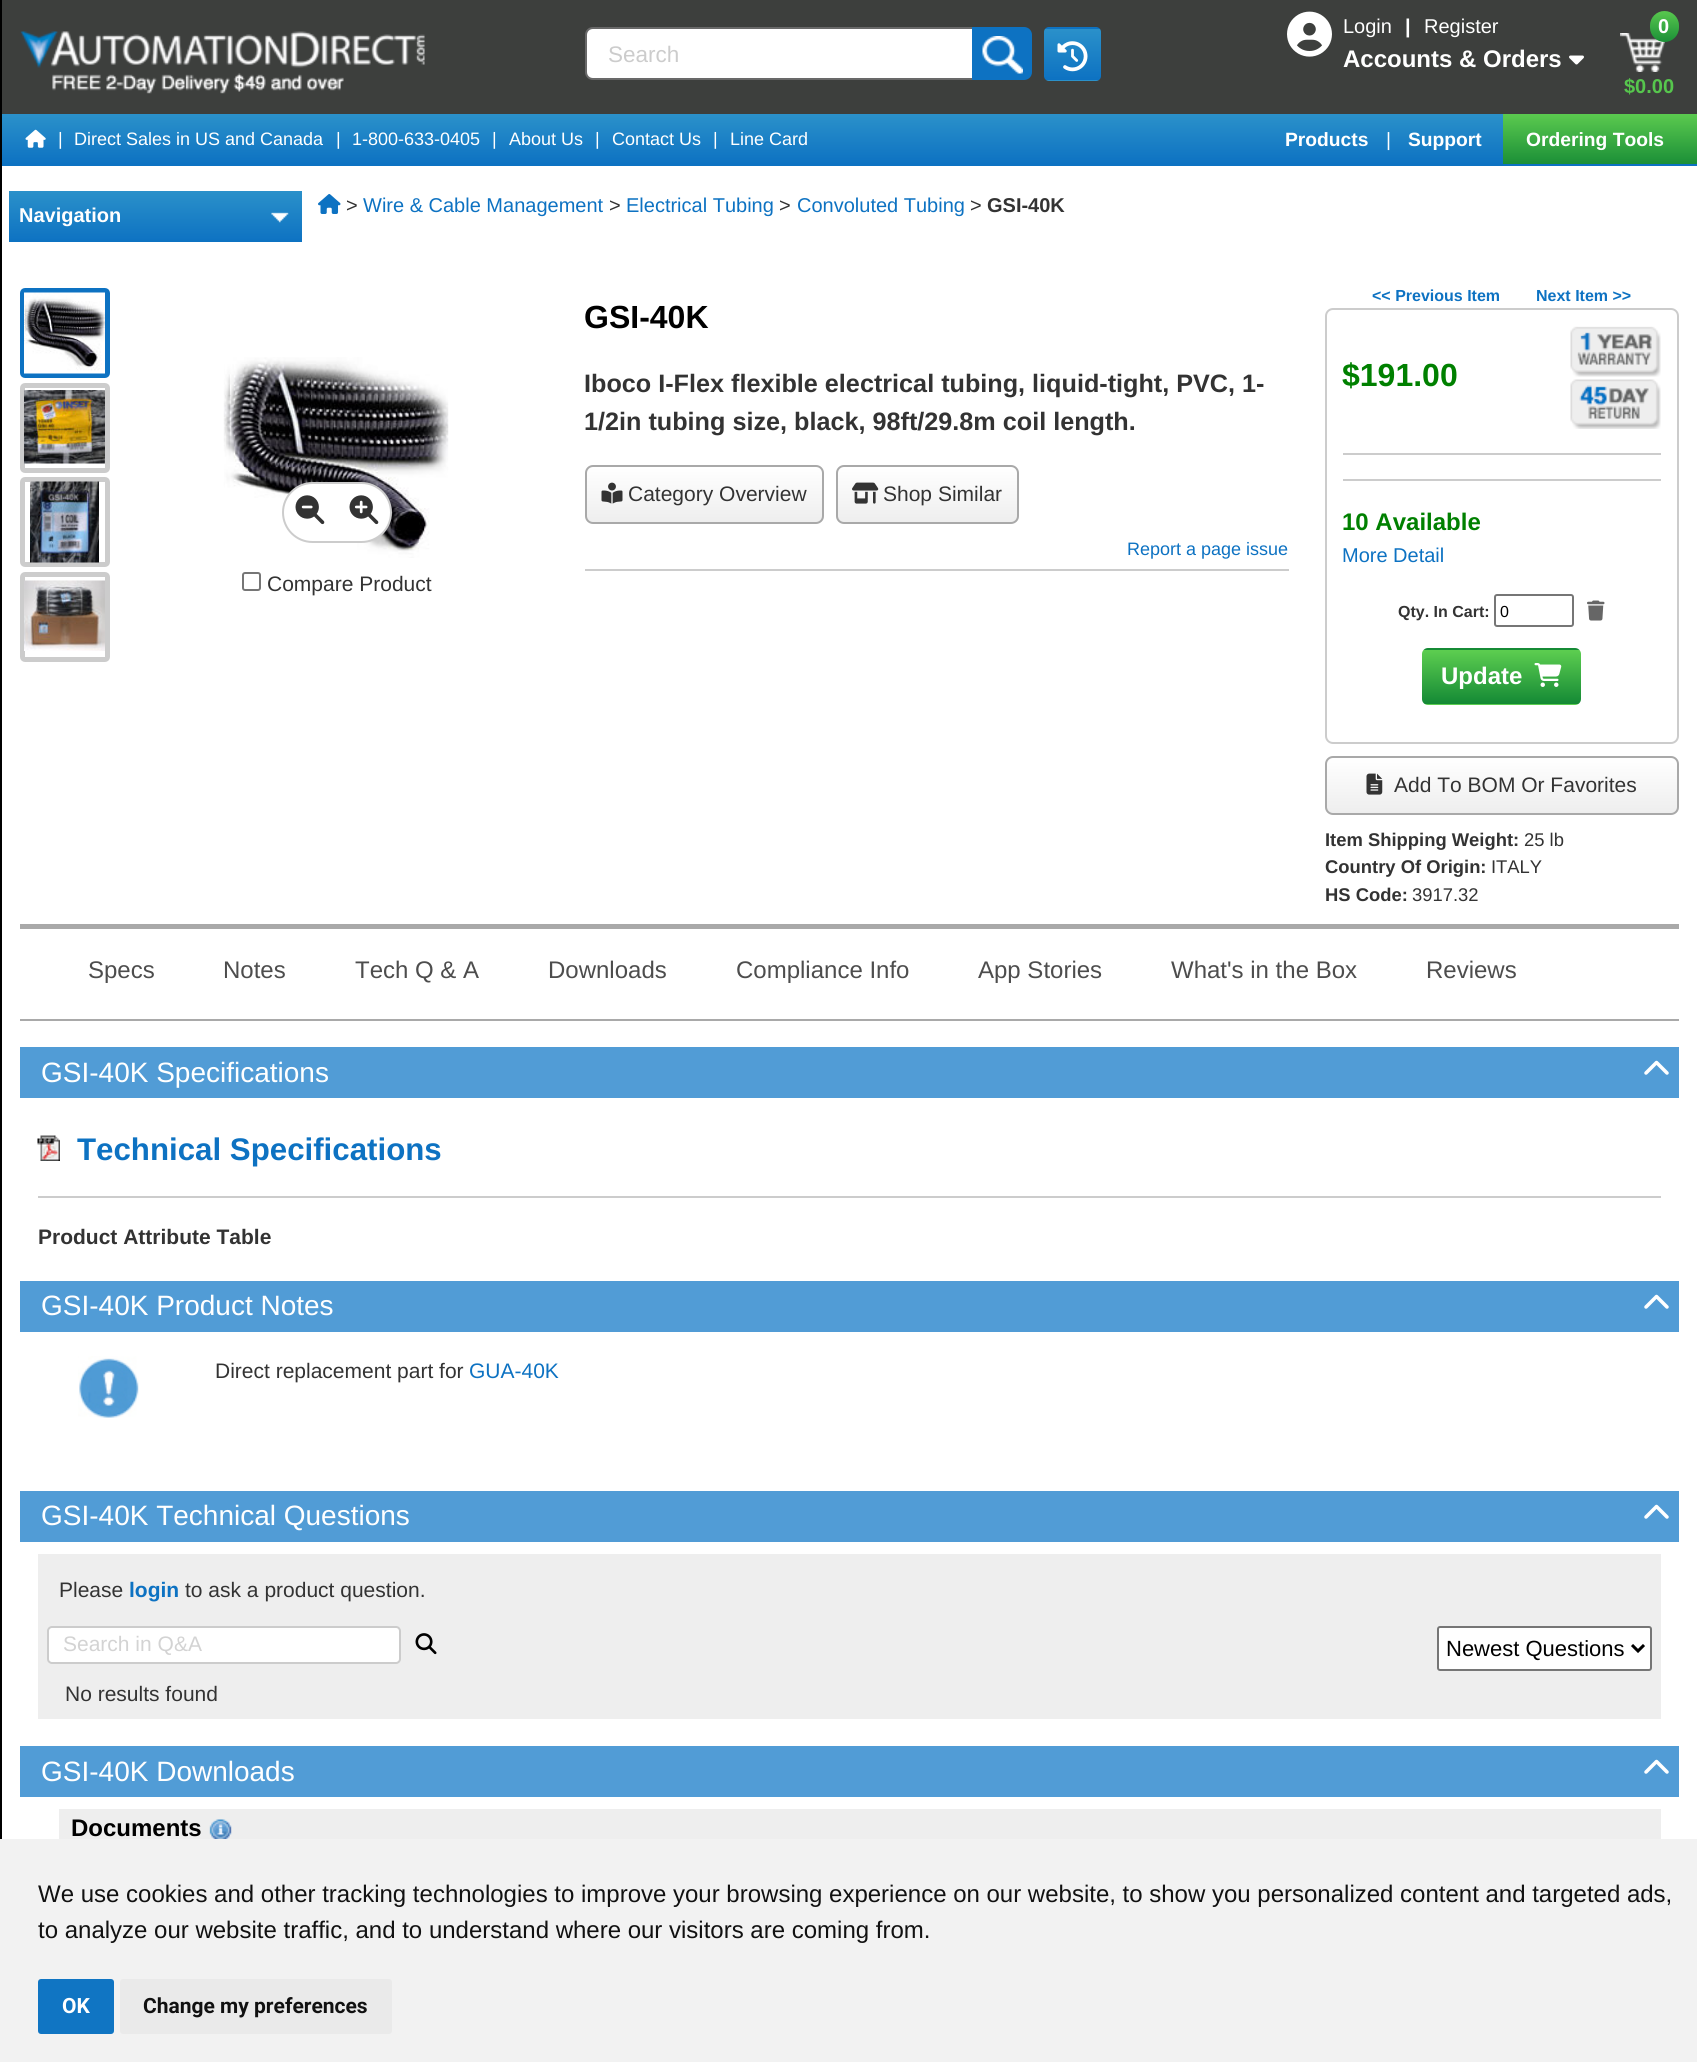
#include <cairo/cairo.h>
#include <math.h>
#include <stddef.h>

typedef struct { double x, y; const char *s; } line_t;
typedef struct { double x, y, w, h; unsigned color; } box_t;
static cairo_t *cr;

static void rgb(unsigned color)
{
	cairo_set_source_rgb(cr, (color >> 16) / 255.0, (color >> 8 & 255) / 255.0, (color & 255) / 255.0);
}

static void rrect(double x, double y, double w, double h, double r)
{
	cairo_new_sub_path(cr);
	cairo_arc(cr, x + w - r, y + h - r, r, 0, M_PI / 2);
	cairo_arc(cr, x + r, y + h - r, r, M_PI / 2, M_PI);
	cairo_arc(cr, x + r, y + r, r, M_PI, 1.5 * M_PI);
	cairo_arc(cr, x + w - r, y + r, r, 1.5 * M_PI, 2 * M_PI);
	cairo_close_path(cr);
}

static void image(const char *path, double x, double y, double w, double h)
{
	cairo_surface_t *image = cairo_image_surface_create_from_png(path);
	cairo_save(cr);
	cairo_set_source_surface(cr, image, x, y);
	cairo_rectangle(cr, x, y, w, h);
	cairo_fill(cr);
	cairo_restore(cr);
	cairo_surface_destroy(image);
}

int main(void) {
	cairo_surface_t *surface = cairo_image_surface_create(CAIRO_FORMAT_RGB24, 1697, 2062);
	cr = cairo_create(surface);
	cairo_font_options_t *options = cairo_font_options_create();
	cairo_font_options_set_hint_metrics(options, CAIRO_HINT_METRICS_OFF);
	cairo_font_options_set_hint_style(options, CAIRO_HINT_STYLE_NONE);
	cairo_set_font_options(cr, options);
	cairo_set_miter_limit(cr, 4);
	cairo_pattern_t *gradient;
	rgb(0xffffff);
	cairo_paint(cr);
	rgb(0x000000);
	cairo_rectangle(cr, 0, 0, 2, 1839);
	cairo_fill(cr);
	rgb(0x3d3f3d);
	cairo_rectangle(cr, 2, 0, 1695, 114);
	cairo_fill(cr);
	image("img/1.png", 20, 31, 405, 63);
	rgb(0xffffff);
	cairo_new_path(cr);
	cairo_move_to(cr, 593, 28);
	cairo_line_to(cr, 977, 28);
	cairo_line_to(cr, 977, 79);
	cairo_line_to(cr, 593, 79);
	cairo_curve_to(cr, 589, 79, 586, 76, 586, 72);
	cairo_line_to(cr, 586, 35);
	cairo_curve_to(cr, 586, 31, 589, 28, 593, 28);
	cairo_close_path(cr);
	cairo_fill_preserve(cr);
	rgb(0x696969);
	cairo_stroke(cr);
	rgb(0x0d72c2);
	cairo_new_path(cr);
	cairo_move_to(cr, 972, 27);
	cairo_line_to(cr, 1024, 27);
	cairo_curve_to(cr, 1028.5, 27, 1032, 30.5, 1032, 35);
	cairo_line_to(cr, 1032, 72);
	cairo_curve_to(cr, 1032, 76.5, 1028.5, 80, 1024, 80);
	cairo_line_to(cr, 972, 80);
	cairo_close_path(cr);
	cairo_fill(cr);
	image("img/2.png", 982, 36, 41, 38);
	cairo_save(cr);
	rrect(1044, 27, 57, 54, 5);
	cairo_clip(cr);
	gradient = cairo_pattern_create_linear(1073, -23, 1073, 29);
	cairo_pattern_add_color_stop_rgba(gradient, 0, 0.169, 0.569, 0.792, 1);
	cairo_pattern_add_color_stop_rgba(gradient, 1, 0.051, 0.447, 0.761, 1);
	cairo_set_source(cr, gradient);
	cairo_pattern_destroy(gradient);
	cairo_rectangle(cr, 1044, 27, 57, 2);
	cairo_fill(cr);
	gradient = cairo_pattern_create_linear(1073, 28, 1073, 80);
	cairo_pattern_add_color_stop_rgba(gradient, 0, 0.169, 0.569, 0.792, 1);
	cairo_pattern_add_color_stop_rgba(gradient, 1, 0.051, 0.447, 0.761, 1);
	cairo_set_source(cr, gradient);
	cairo_pattern_destroy(gradient);
	cairo_rectangle(cr, 1044, 29, 57, 51);
	cairo_fill(cr);
	gradient = cairo_pattern_create_linear(1073, 80, 1073, 131);
	cairo_pattern_add_color_stop_rgba(gradient, 0, 0.169, 0.569, 0.792, 1);
	cairo_pattern_add_color_stop_rgba(gradient, 1, 0.051, 0.447, 0.761, 1);
	cairo_set_source(cr, gradient);
	cairo_pattern_destroy(gradient);
	cairo_rectangle(cr, 1044, 80, 57, 1);
	cairo_fill(cr);
	cairo_restore(cr);
	image("img/3.png", 1057, 41, 31, 31);
	image("img/4.png", 1287, 11, 45, 46);
	image("img/5.png", 1569, 55, 15, 10);
	image("img/6.png", 1620, 33, 45, 39);
	gradient = cairo_pattern_create_linear(1664, 10, 1664, 42);
	cairo_pattern_add_color_stop_rgba(gradient, 0, 0.357, 0.792, 0.31, 1);
	cairo_pattern_add_color_stop_rgba(gradient, 1, 0.106, 0.561, 0.216, 1);
	cairo_set_source(cr, gradient);
	cairo_pattern_destroy(gradient);
	rrect(1650, 11, 29, 31, 14.5);
	cairo_fill(cr);
	gradient = cairo_pattern_create_linear(849, 114, 849, 164);
	cairo_pattern_add_color_stop_rgba(gradient, 0, 0.169, 0.569, 0.792, 1);
	cairo_pattern_add_color_stop_rgba(gradient, 1, 0.051, 0.447, 0.761, 1);
	cairo_set_source(cr, gradient);
	cairo_pattern_destroy(gradient);
	cairo_rectangle(cr, 2, 114, 1501, 50);
	cairo_fill(cr);
	rgb(0x0d72c2);
	cairo_rectangle(cr, 2, 164, 1695, 2);
	cairo_fill(cr);
	image("img/7.png", 25, 129, 21, 19);
	gradient = cairo_pattern_create_linear(1600, 114, 1600, 164);
	cairo_pattern_add_color_stop_rgba(gradient, 0, 0.357, 0.792, 0.31, 1);
	cairo_pattern_add_color_stop_rgba(gradient, 1, 0.106, 0.561, 0.216, 1);
	cairo_set_source(cr, gradient);
	cairo_pattern_destroy(gradient);
	cairo_rectangle(cr, 1503, 114, 194, 50);
	cairo_fill(cr);
	gradient = cairo_pattern_create_linear(155, 190, 155, 242);
	cairo_pattern_add_color_stop_rgba(gradient, 0, 0.169, 0.569, 0.792, 1);
	cairo_pattern_add_color_stop_rgba(gradient, 1, 0.051, 0.447, 0.761, 1);
	cairo_set_source(cr, gradient);
	cairo_pattern_destroy(gradient);
	cairo_rectangle(cr, 9, 191, 293, 51);
	cairo_fill(cr);
	image("img/8.png", 271, 212, 18, 11);
	image("img/9.png", 318, 194, 23, 20);
	cairo_save(cr);
	rrect(585, 465, 239, 59, 8);
	cairo_clip(cr);
	gradient = cairo_pattern_create_linear(704, 467, 704, 522);
	cairo_pattern_add_color_stop_rgba(gradient, 0, 1, 1, 1, 1);
	cairo_pattern_add_color_stop_rgba(gradient, 1, 0.933, 0.933, 0.933, 1);
	cairo_set_source(cr, gradient);
	cairo_pattern_destroy(gradient);
	cairo_rectangle(cr, 585, 467, 239, 55);
	cairo_fill(cr);
	cairo_restore(cr);
	rrect(586, 466, 237, 57, 7);
	rgb(0xa9a9a9);
	cairo_stroke(cr);
	image("img/10.png", 601, 482, 22, 22);
	cairo_save(cr);
	rrect(836, 465, 183, 59, 8);
	cairo_clip(cr);
	gradient = cairo_pattern_create_linear(927, 467, 927, 522);
	cairo_pattern_add_color_stop_rgba(gradient, 0, 1, 1, 1, 1);
	cairo_pattern_add_color_stop_rgba(gradient, 1, 0.933, 0.933, 0.933, 1);
	cairo_set_source(cr, gradient);
	cairo_pattern_destroy(gradient);
	cairo_rectangle(cr, 836, 467, 183, 55);
	cairo_fill(cr);
	cairo_restore(cr);
	rrect(837, 466, 181, 57, 7);
	cairo_stroke(cr);
	image("img/11.png", 852, 482, 27, 22);
	rgb(0xcccccc);
	cairo_rectangle(cr, 585, 569, 704, 2);
	cairo_fill(cr);
	rrect(1326, 309, 352, 434, 7);
	cairo_stroke(cr);
	image("img/12.png", 1570, 326, 91, 51);
	image("img/13.png", 1570, 379, 91, 50);
	cairo_rectangle(cr, 1343, 453, 318, 2);
	cairo_fill(cr);
	cairo_rectangle(cr, 1343, 479, 318, 2);
	cairo_fill(cr);
	rrect(1495, 595, 78, 31, 2);
	rgb(0x767676);
	cairo_stroke(cr);
	image("img/14.png", 1587, 600, 18, 21);
	cairo_save(cr);
	rrect(1422, 648, 159, 57, 6);
	cairo_clip(cr);
	gradient = cairo_pattern_create_linear(1502, 596, 1502, 650);
	cairo_pattern_add_color_stop_rgba(gradient, 0, 0.365, 0.808, 0.314, 1);
	cairo_pattern_add_color_stop_rgba(gradient, 1, 0.078, 0.537, 0.208, 1);
	cairo_set_source(cr, gradient);
	cairo_pattern_destroy(gradient);
	cairo_rectangle(cr, 1422, 648, 159, 2);
	cairo_fill(cr);
	gradient = cairo_pattern_create_linear(1502, 650, 1502, 704);
	cairo_pattern_add_color_stop_rgba(gradient, 0, 0.365, 0.808, 0.314, 1);
	cairo_pattern_add_color_stop_rgba(gradient, 1, 0.078, 0.537, 0.208, 1);
	cairo_set_source(cr, gradient);
	cairo_pattern_destroy(gradient);
	cairo_rectangle(cr, 1422, 650, 159, 54);
	cairo_fill(cr);
	gradient = cairo_pattern_create_linear(1502, 704, 1502, 758);
	cairo_pattern_add_color_stop_rgba(gradient, 0, 0.365, 0.808, 0.314, 1);
	cairo_pattern_add_color_stop_rgba(gradient, 1, 0.078, 0.537, 0.208, 1);
	cairo_set_source(cr, gradient);
	cairo_pattern_destroy(gradient);
	cairo_rectangle(cr, 1422, 704, 159, 1);
	cairo_fill(cr);
	cairo_restore(cr);
	image("img/15.png", 1534, 663, 28, 24);
	cairo_save(cr);
	rrect(1325, 756, 354, 59, 8);
	cairo_clip(cr);
	gradient = cairo_pattern_create_linear(1502, 758, 1502, 813);
	cairo_pattern_add_color_stop_rgba(gradient, 0, 1, 1, 1, 1);
	cairo_pattern_add_color_stop_rgba(gradient, 1, 0.933, 0.933, 0.933, 1);
	cairo_set_source(cr, gradient);
	cairo_pattern_destroy(gradient);
	cairo_rectangle(cr, 1325, 758, 354, 55);
	cairo_fill(cr);
	cairo_restore(cr);
	rrect(1326, 757, 352, 57, 7);
	rgb(0xa9a9a9);
	cairo_stroke(cr);
	image("img/16.png", 1366, 773, 17, 22);
	rrect(22.5, 290.5, 85, 85, 2.5);
	rgb(0x0d72c2);
	cairo_set_line_width(cr, 5);
	cairo_stroke(cr);
	image("img/17.png", 24, 292, 81, 82);
	rrect(22.5, 385.5, 85, 85, 2.5);
	rgb(0xcccccc);
	cairo_stroke(cr);
	image("img/18.png", 24, 390, 81, 74);
	rrect(22.5, 479.5, 85, 85, 2.5);
	cairo_stroke(cr);
	image("img/19.png", 30, 481, 69, 82);
	rrect(22.5, 574.5, 85, 85, 2.5);
	cairo_stroke(cr);
	image("img/20.png", 24, 580, 81, 71);
	image("img/21.png", 223, 357, 226, 201);
	rgb(0xffffff);
	rrect(283, 483, 108, 59, 29.5);
	cairo_fill_preserve(cr);
	rgb(0xcccccc);
	cairo_set_line_width(cr, 2);
	cairo_stroke(cr);
	image("img/22.png", 295, 495, 30, 30);
	image("img/23.png", 349, 495, 30, 30);
	rrect(243, 573, 17, 17, 2);
	rgb(0x767676);
	cairo_stroke(cr);
	{
		static const box_t items[] = {
			{20, 924, 1659, 5, 0xa9a9a9},
			{20, 1019, 1659, 2, 0xa9a9a9},
			{20, 1047, 1659, 51, 0x519cd6},
		};
		for (size_t i = 0; i < sizeof items / sizeof *items; i++) {
			rgb(items[i].color);
			cairo_rectangle(cr, items[i].x, items[i].y, items[i].w, items[i].h);
			cairo_fill(cr);
		}
	}
	image("img/24.png", 1644, 1060, 25, 15);
	image("img/25.png", 37, 1135, 23, 26);
	rgb(0xcccccc);
	cairo_rectangle(cr, 38, 1196, 1623, 2);
	cairo_fill(cr);
	rgb(0x519cd6);
	cairo_rectangle(cr, 20, 1281, 1659, 51);
	cairo_fill(cr);
	image("img/24.png", 1644, 1294, 25, 15);
	image("img/26.png", 78, 1356, 61, 62);
	cairo_rectangle(cr, 20, 1491, 1659, 51);
	cairo_fill(cr);
	image("img/24.png", 1644, 1504, 25, 15);
	cairo_rectangle(cr, 42.5, 1558.5, 1614, 156);
	rgb(0xeeeeee);
	cairo_set_line_width(cr, 9);
	cairo_stroke(cr);
	cairo_rectangle(cr, 47, 1563, 1605, 147);
	cairo_fill(cr);
	rgb(0xffffff);
	rrect(48, 1627, 352, 36, 4);
	cairo_fill_preserve(cr);
	rgb(0xcccccc);
	cairo_set_line_width(cr, 2);
	cairo_stroke(cr);
	image("img/27.png", 415, 1633, 22, 22);
	rgb(0xffffff);
	rrect(1438, 1627, 213, 43, 2);
	cairo_fill_preserve(cr);
	rgb(0x767676);
	cairo_stroke(cr);
	cairo_new_path(cr);
	cairo_move_to(cr, 1632, 1645);
	cairo_line_to(cr, 1638, 1651);
	cairo_line_to(cr, 1644, 1645);
	rgb(0x000000);
	cairo_set_line_width(cr, 3);
	cairo_stroke(cr);
	rgb(0x519cd6);
	cairo_rectangle(cr, 20, 1746, 1659, 51);
	cairo_fill(cr);
	image("img/24.png", 1644, 1759, 25, 15);
	rgb(0xeeeeee);
	cairo_rectangle(cr, 59, 1809, 1602, 30);
	cairo_fill(cr);
	image("img/28.png", 209, 1819, 23, 20);
	rgb(0xf2f2f2);
	cairo_rectangle(cr, 0, 1839, 1697, 223);
	cairo_fill(cr);
	rgb(0x1075c3);
	rrect(38, 1979, 76, 55, 3);
	cairo_fill(cr);
	rgb(0xeaeaea);
	rrect(120, 1979, 272, 55, 3);
	cairo_fill(cr);
	cairo_select_font_face(cr, "Liberation Sans", CAIRO_FONT_SLANT_NORMAL, CAIRO_FONT_WEIGHT_NORMAL);
	cairo_set_font_size(cr, 22.5);
	rgb(0xcccccc);
	cairo_move_to(cr, 608, 62);
	cairo_show_text(cr, "Search");
	cairo_set_font_size(cr, 20);
	rgb(0xffffff);
	cairo_move_to(cr, 1343, 33);
	cairo_show_text(cr, "Login");
	cairo_select_font_face(cr, "Liberation Sans", CAIRO_FONT_SLANT_NORMAL, CAIRO_FONT_WEIGHT_BOLD);
	cairo_move_to(cr, 1405, 33);
	cairo_show_text(cr, "|");
	cairo_select_font_face(cr, "Liberation Sans", CAIRO_FONT_SLANT_NORMAL, CAIRO_FONT_WEIGHT_NORMAL);
	cairo_move_to(cr, 1424, 33);
	cairo_show_text(cr, "Register");
	cairo_select_font_face(cr, "Liberation Sans", CAIRO_FONT_SLANT_NORMAL, CAIRO_FONT_WEIGHT_BOLD);
	cairo_set_font_size(cr, 24);
	cairo_move_to(cr, 1343, 67);
	cairo_show_text(cr, "Accounts & Orders");
	cairo_set_font_size(cr, 20);
	cairo_move_to(cr, 1658, 33);
	cairo_show_text(cr, "0");
	rgb(0x56c64d);
	cairo_move_to(cr, 1624, 93);
	cairo_show_text(cr, "$0.00");
	cairo_select_font_face(cr, "Liberation Sans", CAIRO_FONT_SLANT_NORMAL, CAIRO_FONT_WEIGHT_NORMAL);
	cairo_set_font_size(cr, 18);
	rgb(0xffffff);
	{
		static const line_t items[] = {
			{58, 145, "|"},
			{74, 145, "Direct Sales in US and Canada"},
			{336, 145, "|"},
			{352, 145, "1-800-633-0405"},
			{492, 145, "|"},
			{509, 145, "About Us"},
			{595, 145, "|"},
			{612, 145, "Contact Us"},
			{713, 145, "|"},
			{730, 145, "Line Card"},
		};
		for (size_t i = 0; i < sizeof items / sizeof *items; i++) {
			cairo_move_to(cr, items[i].x, items[i].y);
			cairo_show_text(cr, items[i].s);
		}
	}
	cairo_select_font_face(cr, "Liberation Sans", CAIRO_FONT_SLANT_NORMAL, CAIRO_FONT_WEIGHT_BOLD);
	cairo_set_font_size(cr, 19.25);
	cairo_move_to(cr, 1285, 146);
	cairo_show_text(cr, "Products");
	cairo_select_font_face(cr, "Liberation Sans", CAIRO_FONT_SLANT_NORMAL, CAIRO_FONT_WEIGHT_NORMAL);
	cairo_move_to(cr, 1386, 146);
	cairo_show_text(cr, "|");
	cairo_select_font_face(cr, "Liberation Sans", CAIRO_FONT_SLANT_NORMAL, CAIRO_FONT_WEIGHT_BOLD);
	cairo_move_to(cr, 1408, 146);
	cairo_show_text(cr, "Support");
	cairo_move_to(cr, 1526, 146);
	cairo_show_text(cr, "Ordering Tools");
	cairo_set_font_size(cr, 20);
	cairo_move_to(cr, 19, 222);
	cairo_show_text(cr, "Navigation");
	cairo_select_font_face(cr, "Liberation Sans", CAIRO_FONT_SLANT_NORMAL, CAIRO_FONT_WEIGHT_NORMAL);
	rgb(0x333333);
	cairo_move_to(cr, 346, 212);
	cairo_show_text(cr, ">");
	rgb(0x0d72c2);
	cairo_move_to(cr, 363, 212);
	cairo_show_text(cr, "Wire & Cable Management");
	rgb(0x333333);
	cairo_move_to(cr, 609, 212);
	cairo_show_text(cr, ">");
	rgb(0x0d72c2);
	cairo_move_to(cr, 626, 212);
	cairo_show_text(cr, "Electrical Tubing");
	rgb(0x333333);
	cairo_move_to(cr, 779, 212);
	cairo_show_text(cr, ">");
	rgb(0x0d72c2);
	cairo_move_to(cr, 797, 212);
	cairo_show_text(cr, "Convoluted Tubing");
	rgb(0x333333);
	cairo_move_to(cr, 970, 212);
	cairo_show_text(cr, ">");
	cairo_select_font_face(cr, "Liberation Sans", CAIRO_FONT_SLANT_NORMAL, CAIRO_FONT_WEIGHT_BOLD);
	cairo_move_to(cr, 987, 212);
	cairo_show_text(cr, "GSI-40K");
	cairo_set_font_size(cr, 32);
	rgb(0x000000);
	cairo_move_to(cr, 584, 328);
	cairo_show_text(cr, "GSI-40K");
	cairo_set_font_size(cr, 25.2);
	rgb(0x333333);
	cairo_move_to(cr, 584, 392);
	cairo_show_text(cr, "Iboco I-Flex flexible electrical tubing, liquid-tight, PVC, 1-");
	cairo_move_to(cr, 584, 430);
	cairo_show_text(cr, "1/2in tubing size, black, 98ft/29.8m coil length.");
	cairo_select_font_face(cr, "Liberation Sans", CAIRO_FONT_SLANT_NORMAL, CAIRO_FONT_WEIGHT_NORMAL);
	cairo_set_font_size(cr, 21);
	cairo_move_to(cr, 628, 501);
	cairo_show_text(cr, "Category Overview");
	cairo_move_to(cr, 883, 501);
	cairo_show_text(cr, "Shop Similar");
	cairo_set_font_size(cr, 18);
	rgb(0x0d72c2);
	cairo_move_to(cr, 1127, 555);
	cairo_show_text(cr, "Report a page issue");
	cairo_select_font_face(cr, "Liberation Sans", CAIRO_FONT_SLANT_NORMAL, CAIRO_FONT_WEIGHT_BOLD);
	cairo_set_font_size(cr, 16);
	cairo_move_to(cr, 1372, 301);
	cairo_show_text(cr, "<< Previous Item");
	cairo_move_to(cr, 1536, 301);
	cairo_show_text(cr, "Next Item >>");
	cairo_set_font_size(cr, 32);
	rgb(0x008000);
	cairo_move_to(cr, 1342, 386);
	cairo_show_text(cr, "$191.00");
	cairo_set_font_size(cr, 24);
	cairo_move_to(cr, 1342, 530);
	cairo_show_text(cr, "10 Available");
	cairo_select_font_face(cr, "Liberation Sans", CAIRO_FONT_SLANT_NORMAL, CAIRO_FONT_WEIGHT_NORMAL);
	cairo_set_font_size(cr, 20);
	rgb(0x0d72c2);
	cairo_move_to(cr, 1342, 562);
	cairo_show_text(cr, "More Detail");
	cairo_select_font_face(cr, "Liberation Sans", CAIRO_FONT_SLANT_NORMAL, CAIRO_FONT_WEIGHT_BOLD);
	cairo_set_font_size(cr, 16);
	rgb(0x333333);
	cairo_move_to(cr, 1398, 617);
	cairo_show_text(cr, "Qty. In Cart:");
	cairo_select_font_face(cr, "Liberation Sans", CAIRO_FONT_SLANT_NORMAL, CAIRO_FONT_WEIGHT_NORMAL);
	rgb(0x000000);
	cairo_move_to(cr, 1500, 617);
	cairo_show_text(cr, "0");
	cairo_select_font_face(cr, "Liberation Sans", CAIRO_FONT_SLANT_NORMAL, CAIRO_FONT_WEIGHT_BOLD);
	cairo_set_font_size(cr, 24);
	rgb(0xffffff);
	cairo_move_to(cr, 1441, 684);
	cairo_show_text(cr, "Update");
	cairo_select_font_face(cr, "Liberation Sans", CAIRO_FONT_SLANT_NORMAL, CAIRO_FONT_WEIGHT_NORMAL);
	cairo_set_font_size(cr, 21);
	rgb(0x333333);
	cairo_move_to(cr, 1394, 792);
	cairo_show_text(cr, "Add To BOM Or Favorites");
	cairo_select_font_face(cr, "Liberation Sans", CAIRO_FONT_SLANT_NORMAL, CAIRO_FONT_WEIGHT_BOLD);
	cairo_set_font_size(cr, 18.4);
	cairo_move_to(cr, 1325, 846);
	cairo_show_text(cr, "Item Shipping Weight:");
	cairo_select_font_face(cr, "Liberation Sans", CAIRO_FONT_SLANT_NORMAL, CAIRO_FONT_WEIGHT_NORMAL);
	cairo_move_to(cr, 1524, 846);
	cairo_show_text(cr, "25 lb");
	cairo_select_font_face(cr, "Liberation Sans", CAIRO_FONT_SLANT_NORMAL, CAIRO_FONT_WEIGHT_BOLD);
	cairo_move_to(cr, 1325, 873);
	cairo_show_text(cr, "Country Of Origin:");
	cairo_select_font_face(cr, "Liberation Sans", CAIRO_FONT_SLANT_NORMAL, CAIRO_FONT_WEIGHT_NORMAL);
	cairo_move_to(cr, 1491, 873);
	cairo_show_text(cr, "ITALY");
	cairo_select_font_face(cr, "Liberation Sans", CAIRO_FONT_SLANT_NORMAL, CAIRO_FONT_WEIGHT_BOLD);
	cairo_move_to(cr, 1325, 901);
	cairo_show_text(cr, "HS Code:");
	cairo_select_font_face(cr, "Liberation Sans", CAIRO_FONT_SLANT_NORMAL, CAIRO_FONT_WEIGHT_NORMAL);
	cairo_move_to(cr, 1412, 901);
	cairo_show_text(cr, "3917.32");
	cairo_set_font_size(cr, 21);
	cairo_move_to(cr, 267, 591);
	cairo_show_text(cr, "Compare Product");
	cairo_set_font_size(cr, 24);
	rgb(0x4d4d4d);
	{
		static const line_t items[] = {
			{88, 978, "Specs"},
			{223, 978, "Notes"},
			{355, 978, "Tech Q & A"},
			{548, 978, "Downloads"},
			{736, 978, "Compliance Info"},
			{978, 978, "App Stories"},
			{1171, 978, "What's in the Box"},
			{1426, 978, "Reviews"},
		};
		for (size_t i = 0; i < sizeof items / sizeof *items; i++) {
			cairo_move_to(cr, items[i].x, items[i].y);
			cairo_show_text(cr, items[i].s);
		}
	}
	cairo_set_font_size(cr, 28);
	rgb(0xffffff);
	cairo_move_to(cr, 41, 1082);
	cairo_show_text(cr, "GSI-40K Specifications");
	cairo_select_font_face(cr, "Liberation Sans", CAIRO_FONT_SLANT_NORMAL, CAIRO_FONT_WEIGHT_BOLD);
	cairo_set_font_size(cr, 31.25);
	rgb(0x0d72c2);
	cairo_move_to(cr, 77, 1160);
	cairo_show_text(cr, "Technical Specifications");
	cairo_set_font_size(cr, 21);
	rgb(0x333333);
	cairo_move_to(cr, 38, 1244);
	cairo_show_text(cr, "Product Attribute Table");
	cairo_select_font_face(cr, "Liberation Sans", CAIRO_FONT_SLANT_NORMAL, CAIRO_FONT_WEIGHT_NORMAL);
	cairo_set_font_size(cr, 28);
	rgb(0xffffff);
	cairo_move_to(cr, 41, 1315);
	cairo_show_text(cr, "GSI-40K Product Notes");
	cairo_set_font_size(cr, 21);
	rgb(0x333333);
	cairo_move_to(cr, 215, 1378);
	cairo_show_text(cr, "Direct replacement part for");
	rgb(0x0d72c2);
	cairo_move_to(cr, 469, 1378);
	cairo_show_text(cr, "GUA-40K");
	cairo_set_font_size(cr, 28);
	rgb(0xffffff);
	cairo_move_to(cr, 41, 1525);
	cairo_show_text(cr, "GSI-40K Technical Questions");
	cairo_set_font_size(cr, 21);
	rgb(0x333333);
	cairo_move_to(cr, 59, 1597);
	cairo_show_text(cr, "Please");
	cairo_select_font_face(cr, "Liberation Sans", CAIRO_FONT_SLANT_NORMAL, CAIRO_FONT_WEIGHT_BOLD);
	rgb(0x0d72c2);
	cairo_move_to(cr, 129, 1597);
	cairo_show_text(cr, "login");
	cairo_select_font_face(cr, "Liberation Sans", CAIRO_FONT_SLANT_NORMAL, CAIRO_FONT_WEIGHT_NORMAL);
	rgb(0x333333);
	cairo_move_to(cr, 185, 1597);
	cairo_show_text(cr, "to ask a product question.");
	rgb(0xd3d3d3);
	cairo_move_to(cr, 63, 1651);
	cairo_show_text(cr, "Search in Q&A");
	cairo_set_font_size(cr, 22);
	rgb(0x000000);
	cairo_move_to(cr, 1446, 1656);
	cairo_show_text(cr, "Newest Questions");
	cairo_set_font_size(cr, 21);
	rgb(0x333333);
	cairo_move_to(cr, 65, 1701);
	cairo_show_text(cr, "No results found");
	cairo_set_font_size(cr, 28);
	rgb(0xffffff);
	cairo_move_to(cr, 41, 1781);
	cairo_show_text(cr, "GSI-40K Downloads");
	cairo_select_font_face(cr, "Liberation Sans", CAIRO_FONT_SLANT_NORMAL, CAIRO_FONT_WEIGHT_BOLD);
	cairo_set_font_size(cr, 24);
	rgb(0x000000);
	cairo_move_to(cr, 71, 1836);
	cairo_show_text(cr, "Documents");
	cairo_select_font_face(cr, "Liberation Sans", CAIRO_FONT_SLANT_NORMAL, CAIRO_FONT_WEIGHT_NORMAL);
	rgb(0x111111);
	cairo_move_to(cr, 38, 1902);
	cairo_show_text(cr, "We use cookies and other tracking technologies to improve your browsing experience on our website, to show you personalized content and targeted ads,");
	cairo_move_to(cr, 38, 1938);
	cairo_show_text(cr, "to analyze our website traffic, and to understand where our visitors are coming from.");
	cairo_select_font_face(cr, "Roboto", CAIRO_FONT_SLANT_NORMAL, CAIRO_FONT_WEIGHT_BOLD);
	cairo_set_font_size(cr, 21);
	rgb(0xffffff);
	cairo_move_to(cr, 62, 2013);
	cairo_show_text(cr, "OK");
	rgb(0x111111);
	cairo_move_to(cr, 143, 2013);
	cairo_show_text(cr, "Change my preferences");
	cairo_surface_write_to_png(surface, "page.png");
	cairo_font_options_destroy(options);
	cairo_destroy(cr);
	cairo_surface_destroy(surface);
	return 0;
}
